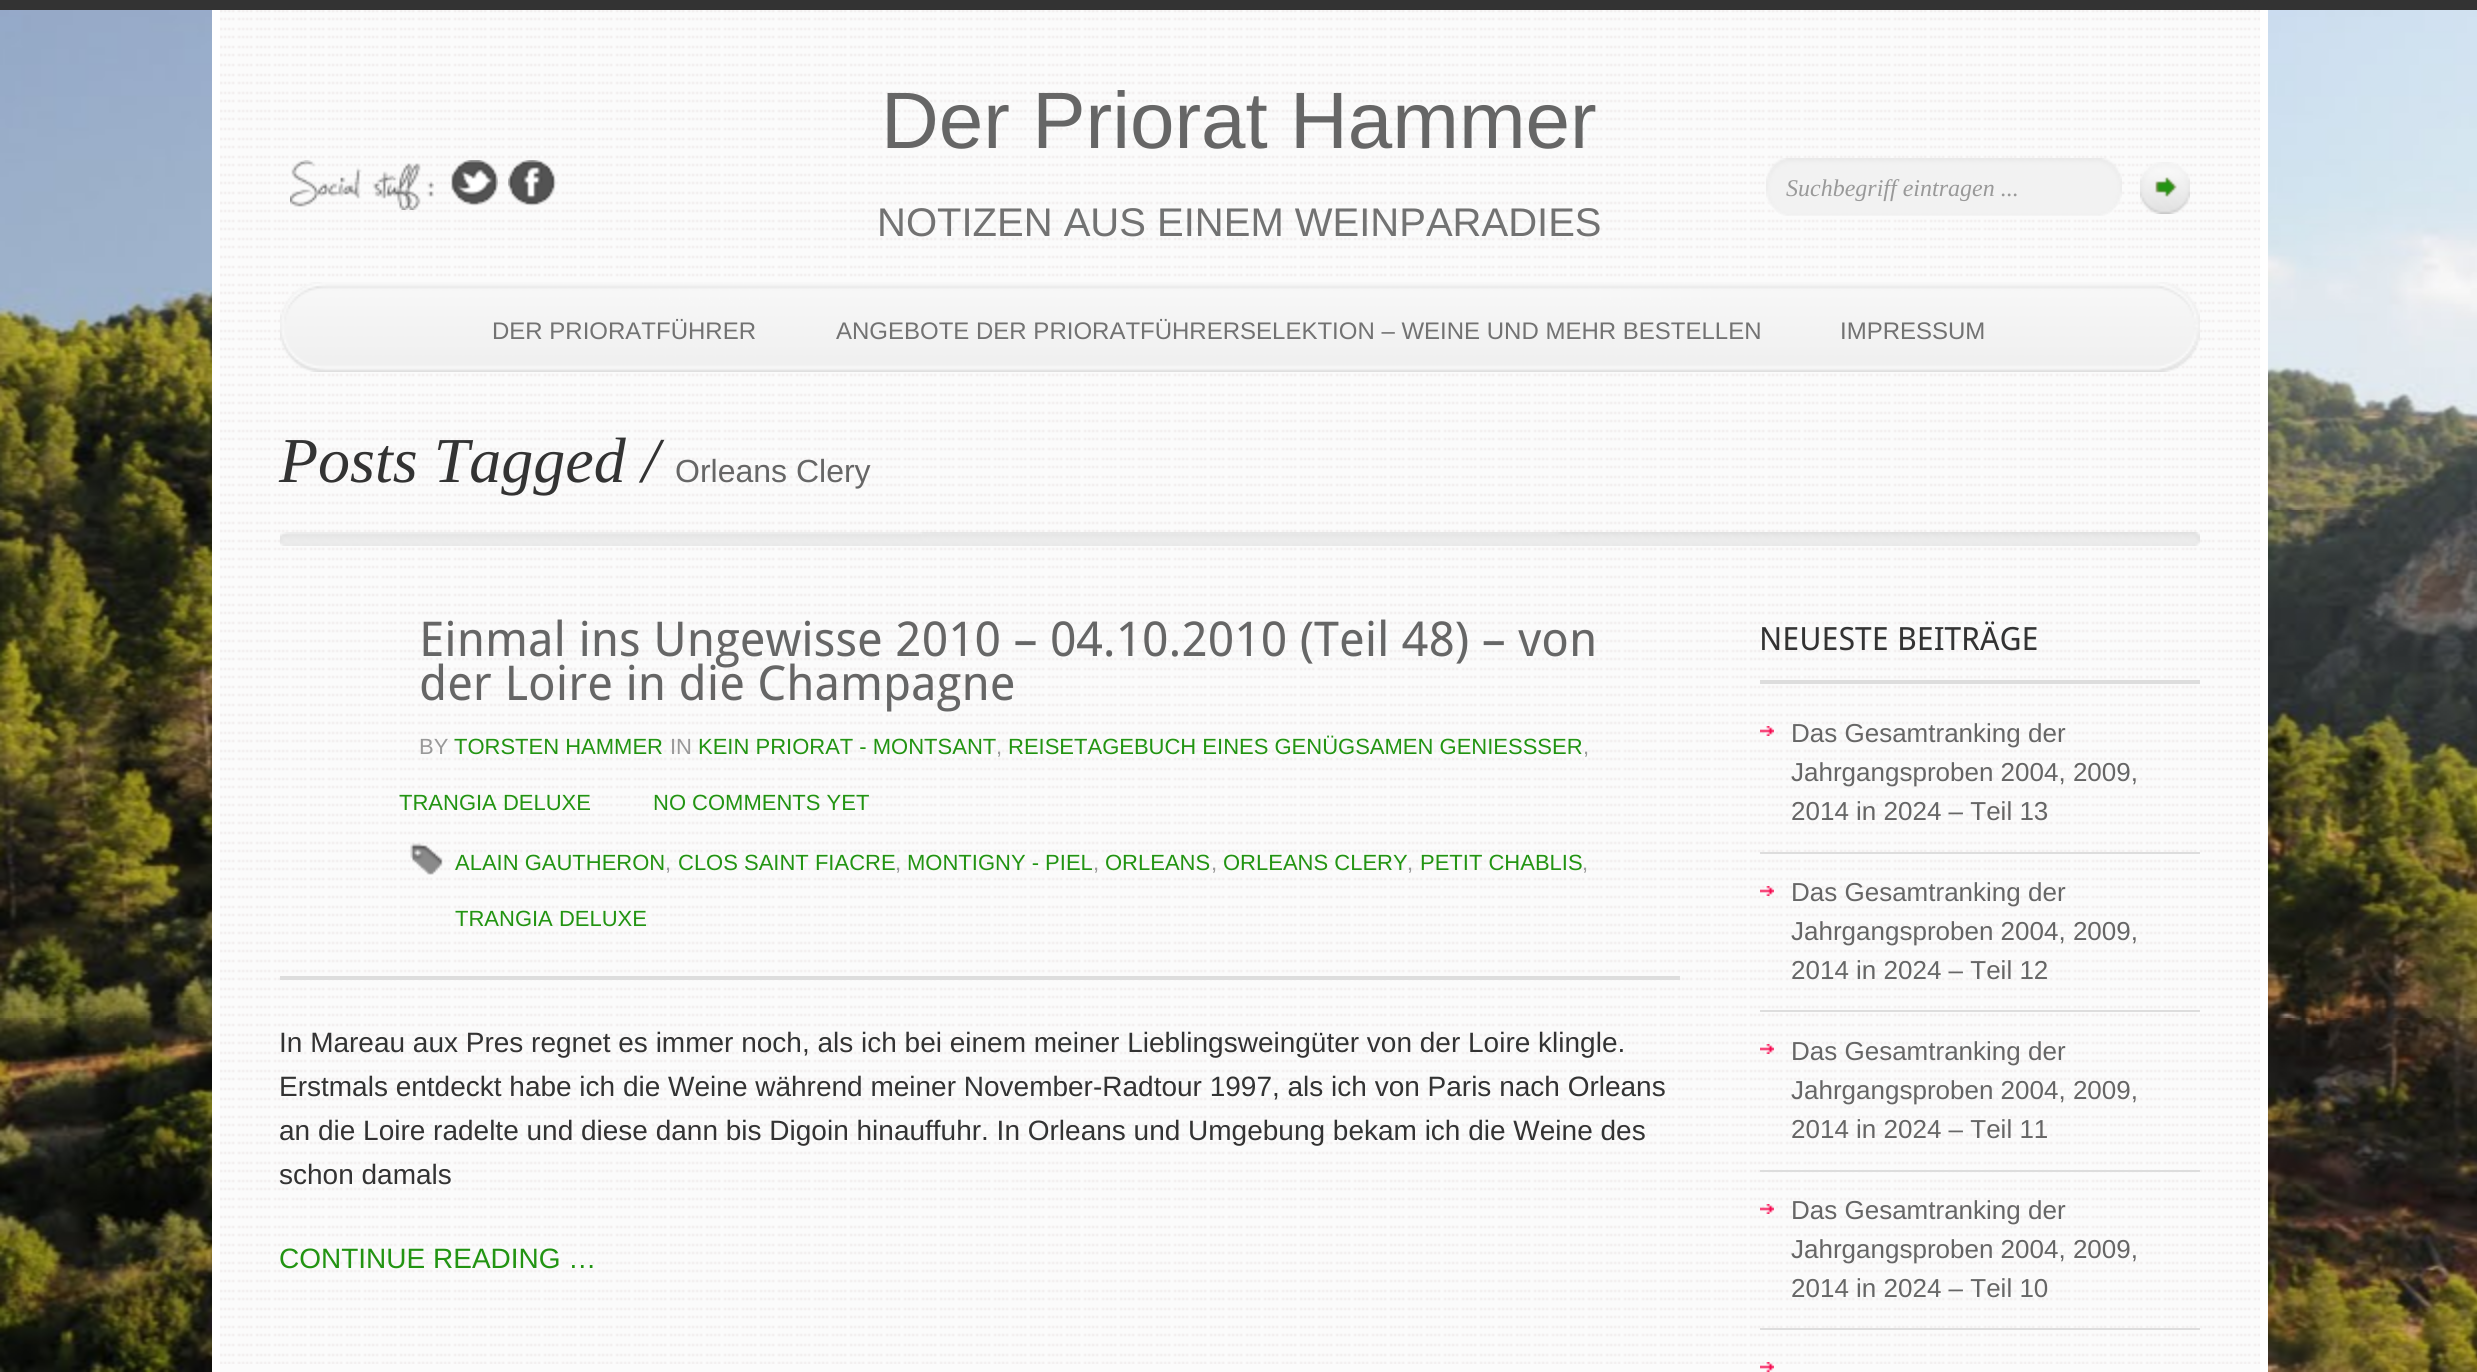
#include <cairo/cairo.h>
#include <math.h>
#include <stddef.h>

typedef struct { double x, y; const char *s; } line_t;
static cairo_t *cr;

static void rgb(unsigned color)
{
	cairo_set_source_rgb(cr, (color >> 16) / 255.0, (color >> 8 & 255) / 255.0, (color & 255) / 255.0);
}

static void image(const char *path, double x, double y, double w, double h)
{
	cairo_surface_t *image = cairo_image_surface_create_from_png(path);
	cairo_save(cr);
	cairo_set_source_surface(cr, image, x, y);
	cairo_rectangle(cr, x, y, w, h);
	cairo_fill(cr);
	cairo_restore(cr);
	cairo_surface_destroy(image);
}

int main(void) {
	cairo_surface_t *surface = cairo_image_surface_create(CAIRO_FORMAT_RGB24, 2477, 1372);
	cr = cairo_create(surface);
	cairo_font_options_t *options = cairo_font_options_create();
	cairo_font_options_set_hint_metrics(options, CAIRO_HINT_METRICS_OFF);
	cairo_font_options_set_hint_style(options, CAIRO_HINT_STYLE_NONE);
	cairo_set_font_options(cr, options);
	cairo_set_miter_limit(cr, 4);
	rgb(0xffffff);
	cairo_paint(cr);
	image("img/1.png", 0, 10, 2477, 1362);
	rgb(0x333333);
	cairo_rectangle(cr, 0, 0, 2477, 10);
	cairo_fill(cr);
	rgb(0xfbfbfb);
	cairo_rectangle(cr, 220, 10, 2040, 1362);
	cairo_fill(cr);
	image("img/2.png", 220, 10, 2040, 1354);
	rgb(0xffffff);
	cairo_rectangle(cr, 2260, 10, 8, 1362);
	cairo_fill(cr);
	cairo_rectangle(cr, 212, 10, 8, 1362);
	cairo_fill(cr);
	image("img/3.png", 290, 160, 144, 50);
	image("img/4.png", 451, 160, 47, 46);
	image("img/5.png", 508, 160, 48, 46);
	image("img/6.png", 1766, 158, 356, 58);
	image("img/7.png", 2140, 162, 50, 52);
	image("img/8.png", 280, 282, 1920, 90);
	image("img/9.png", 280, 532, 1920, 14);
	rgb(0xdddddd);
	cairo_rectangle(cr, 280, 976, 1400, 4);
	cairo_fill(cr);
	image("img/10.png", 410, 843, 33, 32);
	cairo_rectangle(cr, 1760, 680, 440, 4);
	cairo_fill(cr);
	image("img/11.png", 1760, 726, 14, 10);
	cairo_rectangle(cr, 1760, 852, 440, 2);
	cairo_fill(cr);
	image("img/12.png", 1760, 886, 14, 10);
	cairo_rectangle(cr, 1760, 1010, 440, 2);
	cairo_fill(cr);
	image("img/13.png", 1760, 1044, 14, 10);
	cairo_rectangle(cr, 1760, 1170, 440, 2);
	cairo_fill(cr);
	image("img/14.png", 1760, 1204, 14, 10);
	cairo_rectangle(cr, 1760, 1328, 440, 2);
	cairo_fill(cr);
	image("img/15.png", 1760, 1362, 14, 10);
	cairo_select_font_face(cr, "Liberation Sans", CAIRO_FONT_SLANT_NORMAL, CAIRO_FONT_WEIGHT_NORMAL);
	cairo_set_font_size(cr, 80);
	rgb(0x666666);
	cairo_move_to(cr, 881, 148);
	cairo_show_text(cr, "Der Priorat Hammer");
	cairo_select_font_face(cr, "Liberation Serif", CAIRO_FONT_SLANT_ITALIC, CAIRO_FONT_WEIGHT_NORMAL);
	cairo_set_font_size(cr, 24);
	rgb(0x999999);
	cairo_move_to(cr, 1786, 196);
	cairo_show_text(cr, "Suchbegriff eintragen ...");
	cairo_select_font_face(cr, "Liberation Sans", CAIRO_FONT_SLANT_NORMAL, CAIRO_FONT_WEIGHT_NORMAL);
	cairo_set_font_size(cr, 40);
	rgb(0x727272);
	cairo_move_to(cr, 877, 236);
	cairo_show_text(cr, "NOTIZEN AUS EINEM WEINPARADIES");
	cairo_set_font_size(cr, 24);
	{
		static const line_t items[] = {
			{492, 339, "DER PRIORATFÜHRER"},
			{836, 339, "ANGEBOTE DER PRIORATFÜHRERSELEKTION – WEINE UND MEHR BESTELLEN"},
			{1840, 339, "IMPRESSUM"},
		};
		for (size_t i = 0; i < sizeof items / sizeof *items; i++) {
			cairo_move_to(cr, items[i].x, items[i].y);
			cairo_show_text(cr, items[i].s);
		}
	}
	cairo_select_font_face(cr, "Liberation Serif", CAIRO_FONT_SLANT_ITALIC, CAIRO_FONT_WEIGHT_NORMAL);
	cairo_set_font_size(cr, 64);
	rgb(0x333333);
	cairo_move_to(cr, 279, 482);
	cairo_show_text(cr, "Posts Tagged /");
	cairo_select_font_face(cr, "Liberation Sans", CAIRO_FONT_SLANT_NORMAL, CAIRO_FONT_WEIGHT_NORMAL);
	cairo_set_font_size(cr, 32);
	rgb(0x666666);
	cairo_move_to(cr, 675, 482);
	cairo_show_text(cr, "Orleans Clery");
	cairo_select_font_face(cr, "Droid Sans", CAIRO_FONT_SLANT_NORMAL, CAIRO_FONT_WEIGHT_NORMAL);
	cairo_set_font_size(cr, 48);
	cairo_move_to(cr, 419, 656);
	cairo_show_text(cr, "Einmal ins Ungewisse 2010 – 04.10.2010 (Teil 48) – von");
	cairo_move_to(cr, 419, 700);
	cairo_show_text(cr, "der Loire in die Champagne");
	cairo_select_font_face(cr, "Liberation Sans", CAIRO_FONT_SLANT_NORMAL, CAIRO_FONT_WEIGHT_NORMAL);
	cairo_set_font_size(cr, 22);
	rgb(0x999999);
	cairo_move_to(cr, 419, 754);
	cairo_show_text(cr, "BY");
	rgb(0x229412);
	cairo_move_to(cr, 454, 754);
	cairo_show_text(cr, "TORSTEN HAMMER");
	rgb(0x999999);
	cairo_move_to(cr, 670, 754);
	cairo_show_text(cr, "IN");
	rgb(0x229412);
	cairo_move_to(cr, 698, 754);
	cairo_show_text(cr, "KEIN PRIORAT - MONTSANT");
	rgb(0x999999);
	cairo_move_to(cr, 996, 754);
	cairo_show_text(cr, ",");
	rgb(0x229412);
	cairo_move_to(cr, 1008, 754);
	cairo_show_text(cr, "REISETAGEBUCH EINES GENÜGSAMEN GENIESSSER");
	rgb(0x999999);
	cairo_move_to(cr, 1583, 754);
	cairo_show_text(cr, ",");
	rgb(0x229412);
	{
		static const line_t items[] = {
			{399, 810, "TRANGIA DELUXE"},
			{653, 810, "NO COMMENTS YET"},
			{455, 870, "ALAIN GAUTHERON"},
		};
		for (size_t i = 0; i < sizeof items / sizeof *items; i++) {
			cairo_move_to(cr, items[i].x, items[i].y);
			cairo_show_text(cr, items[i].s);
		}
	}
	rgb(0x999999);
	cairo_move_to(cr, 665, 870);
	cairo_show_text(cr, ",");
	rgb(0x229412);
	cairo_move_to(cr, 678, 870);
	cairo_show_text(cr, "CLOS SAINT FIACRE");
	rgb(0x999999);
	cairo_move_to(cr, 895, 870);
	cairo_show_text(cr, ",");
	rgb(0x229412);
	cairo_move_to(cr, 907, 870);
	cairo_show_text(cr, "MONTIGNY - PIEL");
	rgb(0x999999);
	cairo_move_to(cr, 1093, 870);
	cairo_show_text(cr, ",");
	rgb(0x229412);
	cairo_move_to(cr, 1105, 870);
	cairo_show_text(cr, "ORLEANS");
	rgb(0x999999);
	cairo_move_to(cr, 1211, 870);
	cairo_show_text(cr, ",");
	rgb(0x229412);
	cairo_move_to(cr, 1223, 870);
	cairo_show_text(cr, "ORLEANS CLERY");
	rgb(0x999999);
	cairo_move_to(cr, 1407, 870);
	cairo_show_text(cr, ",");
	rgb(0x229412);
	cairo_move_to(cr, 1420, 870);
	cairo_show_text(cr, "PETIT CHABLIS");
	rgb(0x999999);
	cairo_move_to(cr, 1582, 870);
	cairo_show_text(cr, ",");
	rgb(0x229412);
	cairo_move_to(cr, 455, 926);
	cairo_show_text(cr, "TRANGIA DELUXE");
	cairo_set_font_size(cr, 28);
	rgb(0x333333);
	{
		static const line_t items[] = {
			{279, 1052, "In Mareau aux Pres regnet es immer noch, als ich bei einem meiner Lieblingsweingüter von der Loire klingle."},
			{279, 1096, "Erstmals entdeckt habe ich die Weine während meiner November-Radtour 1997, als ich von Paris nach Orleans"},
			{279, 1140, "an die Loire radelte und diese dann bis Digoin hinauffuhr. In Orleans und Umgebung bekam ich die Weine des"},
			{279, 1184, "schon damals"},
		};
		for (size_t i = 0; i < sizeof items / sizeof *items; i++) {
			cairo_move_to(cr, items[i].x, items[i].y);
			cairo_show_text(cr, items[i].s);
		}
	}
	rgb(0x229412);
	cairo_move_to(cr, 279, 1268);
	cairo_show_text(cr, "CONTINUE READING …");
	cairo_select_font_face(cr, "Droid Sans", CAIRO_FONT_SLANT_NORMAL, CAIRO_FONT_WEIGHT_NORMAL);
	cairo_set_font_size(cr, 32);
	rgb(0x333333);
	cairo_move_to(cr, 1759, 650);
	cairo_show_text(cr, "NEUESTE BEITRÄGE");
	cairo_select_font_face(cr, "Liberation Sans", CAIRO_FONT_SLANT_NORMAL, CAIRO_FONT_WEIGHT_NORMAL);
	cairo_set_font_size(cr, 26);
	rgb(0x666666);
	{
		static const line_t items[] = {
			{1791, 742, "Das Gesamtranking der"},
			{1791, 781, "Jahrgangsproben 2004, 2009,"},
			{1791, 820, "2014 in 2024 – Teil 13"},
			{1791, 901, "Das Gesamtranking der"},
			{1791, 940, "Jahrgangsproben 2004, 2009,"},
			{1791, 979, "2014 in 2024 – Teil 12"},
			{1791, 1060, "Das Gesamtranking der"},
			{1791, 1099, "Jahrgangsproben 2004, 2009,"},
			{1791, 1138, "2014 in 2024 – Teil 11"},
			{1791, 1219, "Das Gesamtranking der"},
			{1791, 1258, "Jahrgangsproben 2004, 2009,"},
			{1791, 1297, "2014 in 2024 – Teil 10"},
		};
		for (size_t i = 0; i < sizeof items / sizeof *items; i++) {
			cairo_move_to(cr, items[i].x, items[i].y);
			cairo_show_text(cr, items[i].s);
		}
	}
	cairo_surface_write_to_png(surface, "page.png");
	cairo_font_options_destroy(options);
	cairo_destroy(cr);
	cairo_surface_destroy(surface);
	return 0;
}
